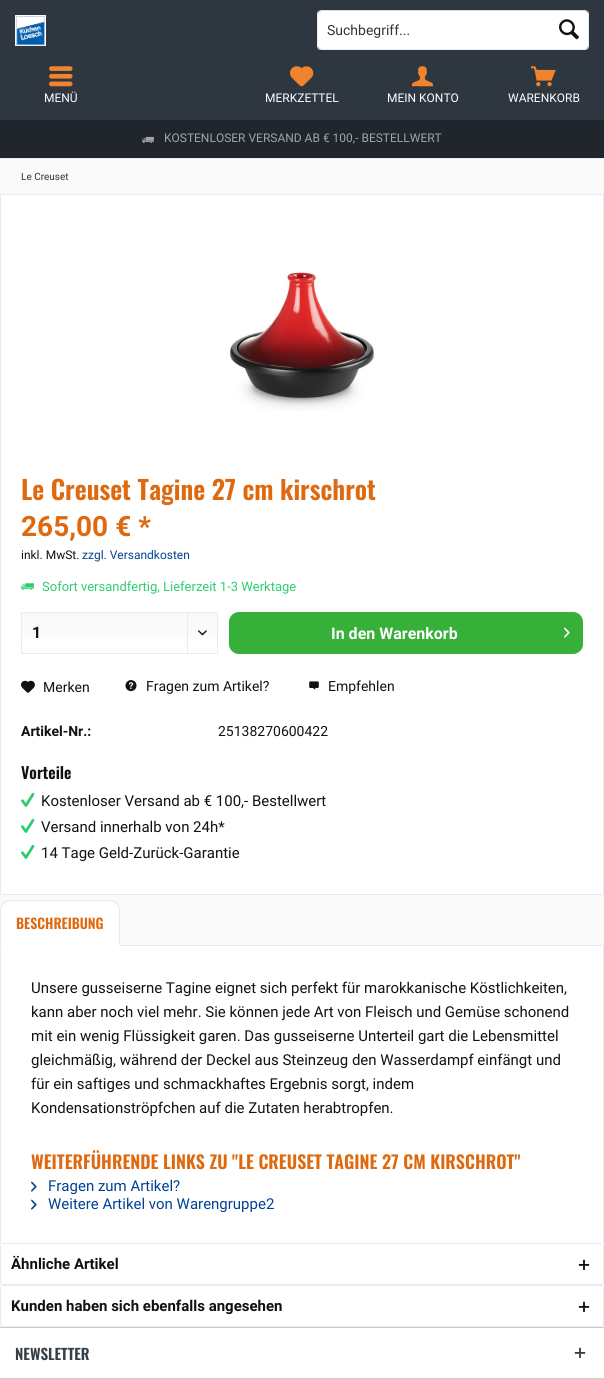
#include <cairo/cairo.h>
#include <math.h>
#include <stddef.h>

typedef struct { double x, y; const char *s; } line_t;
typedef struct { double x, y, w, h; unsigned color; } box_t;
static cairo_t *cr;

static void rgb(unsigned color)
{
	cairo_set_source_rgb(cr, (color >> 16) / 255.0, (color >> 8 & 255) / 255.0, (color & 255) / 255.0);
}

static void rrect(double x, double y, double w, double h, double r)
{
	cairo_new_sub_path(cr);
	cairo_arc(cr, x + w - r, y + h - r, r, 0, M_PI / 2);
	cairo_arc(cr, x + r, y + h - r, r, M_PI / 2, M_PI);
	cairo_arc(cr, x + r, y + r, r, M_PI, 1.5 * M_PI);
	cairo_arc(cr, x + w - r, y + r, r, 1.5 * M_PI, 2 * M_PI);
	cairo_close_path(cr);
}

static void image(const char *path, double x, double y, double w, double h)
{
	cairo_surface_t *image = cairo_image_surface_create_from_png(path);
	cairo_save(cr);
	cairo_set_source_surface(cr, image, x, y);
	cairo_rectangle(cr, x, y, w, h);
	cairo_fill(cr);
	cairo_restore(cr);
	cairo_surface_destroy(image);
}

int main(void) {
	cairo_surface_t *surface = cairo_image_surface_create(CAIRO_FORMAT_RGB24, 604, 1379);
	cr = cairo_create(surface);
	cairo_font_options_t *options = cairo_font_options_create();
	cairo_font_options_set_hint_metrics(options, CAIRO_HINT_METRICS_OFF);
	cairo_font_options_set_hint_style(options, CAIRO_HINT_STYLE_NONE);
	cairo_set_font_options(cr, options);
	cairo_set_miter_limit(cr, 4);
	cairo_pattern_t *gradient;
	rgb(0xfafafa);
	cairo_paint(cr);
	rgb(0x2e3740);
	cairo_rectangle(cr, 0, 0, 604, 120);
	cairo_fill(cr);
	image("img/1.png", 15, 15, 31, 31);
	rgb(0xffffff);
	rrect(318, 11, 270, 38, 3);
	cairo_fill(cr);
	cairo_new_path(cr);
	cairo_move_to(cr, 318.5, 11.5);
	cairo_line_to(cr, 321, 10.5);
	cairo_line_to(cr, 585, 10.5);
	cairo_line_to(cr, 587.5, 11.5);
	rgb(0xdbdbe5);
	cairo_set_line_width(cr, 1);
	cairo_stroke(cr);
	cairo_new_path(cr);
	cairo_move_to(cr, 587.5, 11.5);
	cairo_curve_to(cr, 588, 12, 588.5, 13, 588.5, 14);
	cairo_line_to(cr, 588.5, 46);
	cairo_curve_to(cr, 588.5, 47, 588, 48, 587.5, 48.5);
	cairo_curve_to(cr, 587, 49, 586, 49.5, 585, 49.5);
	cairo_line_to(cr, 321, 49.5);
	cairo_curve_to(cr, 320, 49.5, 319, 49, 318.5, 48.5);
	cairo_curve_to(cr, 318, 48, 317.5, 47, 317.5, 46);
	cairo_line_to(cr, 317.5, 14);
	cairo_curve_to(cr, 317.5, 13, 318, 12, 318.5, 11.5);
	rgb(0xeaeaf0);
	cairo_stroke(cr);
	image("img/2.png", 559, 19, 20, 21);
	image("img/3.png", 49, 66, 24, 21);
	image("img/4.png", 290, 66, 24, 21);
	image("img/5.png", 412, 66, 21, 21);
	image("img/6.png", 531, 66, 25, 21);
	rgb(0x21262c);
	cairo_rectangle(cr, 0, 120, 604, 38);
	cairo_fill(cr);
	image("img/7.png", 142, 136, 12, 7);
	{
		static const box_t items[] = {
			{0, 158, 604, 1, 0xeaeaf0},
			{1, 195, 602, 699, 0xffffff},
			{0, 194, 604, 1, 0xeaeaf0},
			{603, 194, 1, 701, 0xeaeaf0},
			{0, 194, 1, 21, 0xeaeaf0},
			{0, 894, 604, 1, 0xeaeaf0},
			{0, 215, 1, 680, 0xeaeaf0},
		};
		for (size_t i = 0; i < sizeof items / sizeof *items; i++) {
			rgb(items[i].color);
			cairo_rectangle(cr, items[i].x, items[i].y, items[i].w, items[i].h);
			cairo_fill(cr);
		}
	}
	image("img/8.png", 230, 271, 144, 140);
	image("img/9.png", 21, 583, 13, 7);
	gradient = cairo_pattern_create_linear(120, 613, 120, 653);
	cairo_pattern_add_color_stop_rgba(gradient, 0, 0.973, 0.973, 0.98, 1);
	cairo_pattern_add_color_stop_rgba(gradient, 1, 1, 1, 1, 1);
	cairo_set_source(cr, gradient);
	cairo_pattern_destroy(gradient);
	cairo_rectangle(cr, 22, 613, 195, 26);
	cairo_fill(cr);
	cairo_rectangle(cr, 21.5, 612.5, 196, 41);
	rgb(0xeaeaf0);
	cairo_stroke(cr);
	cairo_rectangle(cr, 187, 613, 1, 40);
	cairo_fill(cr);
	image("img/10.png", 198, 630, 9, 6);
	rgb(0x37b03a);
	rrect(229.5, 612.5, 353, 41, 9.5);
	cairo_fill_preserve(cr);
	cairo_stroke(cr);
	image("img/11.png", 564, 627, 6, 11);
	image("img/12.png", 21, 680, 14, 13);
	image("img/13.png", 125, 680, 12, 12);
	image("img/14.png", 309, 681, 10, 9);
	image("img/15.png", 21, 792, 14, 15);
	image("img/15.png", 21, 818, 14, 15);
	image("img/15.png", 21, 844, 14, 15);
	rgb(0xffffff);
	cairo_rectangle(cr, 0.5, 945.5, 603, 298);
	cairo_fill_preserve(cr);
	rgb(0xeaeaf0);
	cairo_stroke(cr);
	rgb(0xffffff);
	cairo_new_path(cr);
	cairo_move_to(cr, 10, 900);
	cairo_line_to(cr, 110, 900);
	cairo_curve_to(cr, 115.5, 900, 120, 904.5, 120, 910);
	cairo_line_to(cr, 120, 946);
	cairo_line_to(cr, 0, 946);
	cairo_line_to(cr, 0, 910);
	cairo_curve_to(cr, 0, 904.5, 4.5, 900, 10, 900);
	cairo_close_path(cr);
	cairo_fill(cr);
	rgb(0xeaeaf0);
	cairo_new_path(cr);
	cairo_move_to(cr, 10, 900);
	cairo_curve_to(cr, 7, 900, 4, 901, 3, 903);
	cairo_line_to(cr, 4, 904);
	cairo_curve_to(cr, 5, 902, 8, 901, 10, 901);
	cairo_line_to(cr, 110, 901);
	cairo_curve_to(cr, 112, 901, 115, 902, 116, 904);
	cairo_line_to(cr, 117, 903);
	cairo_curve_to(cr, 116, 901, 113, 900, 110, 900);
	cairo_close_path(cr);
	cairo_fill(cr);
	cairo_new_path(cr);
	cairo_move_to(cr, 120, 946);
	cairo_line_to(cr, 120, 910);
	cairo_curve_to(cr, 120, 907, 119, 904, 117, 903);
	cairo_line_to(cr, 116, 904);
	cairo_curve_to(cr, 118, 905, 119, 908, 119, 910);
	cairo_line_to(cr, 119, 945);
	cairo_close_path(cr);
	cairo_fill(cr);
	rgb(0xffffff);
	cairo_new_path(cr);
	cairo_move_to(cr, 120, 946);
	cairo_line_to(cr, 119, 945);
	cairo_line_to(cr, 1, 945);
	cairo_line_to(cr, 0, 946);
	cairo_close_path(cr);
	cairo_fill(cr);
	rgb(0xeaeaf0);
	cairo_new_path(cr);
	cairo_move_to(cr, 0, 946);
	cairo_line_to(cr, 1, 945);
	cairo_line_to(cr, 1, 910);
	cairo_curve_to(cr, 1, 908, 2, 905, 4, 904);
	cairo_line_to(cr, 3, 903);
	cairo_curve_to(cr, 1, 904, 0, 907, 0, 910);
	cairo_close_path(cr);
	cairo_fill(cr);
	image("img/16.png", 31, 1181, 6, 11);
	image("img/16.png", 31, 1199, 6, 11);
	rgb(0xffffff);
	cairo_rectangle(cr, 0, 1243, 604, 84);
	cairo_fill(cr);
	rrect(0.5, 1243.5, 603, 41, 2.5);
	rgb(0xeaeaf0);
	cairo_stroke(cr);
	image("img/17.png", 578, 1259, 12, 12);
	rrect(0.5, 1285.5, 603, 41, 2.5);
	cairo_stroke(cr);
	image("img/17.png", 578, 1301, 12, 12);
	rgb(0xffffff);
	cairo_rectangle(cr, 0, 1328, 604, 50);
	cairo_fill(cr);
	rgb(0xcccccc);
	cairo_rectangle(cr, 0, 1327, 604, 1);
	cairo_fill(cr);
	image("img/18.png", 574, 1347, 12, 12);
	cairo_rectangle(cr, 0, 1378, 604, 1);
	cairo_fill(cr);
	cairo_select_font_face(cr, "Roboto", CAIRO_FONT_SLANT_NORMAL, CAIRO_FONT_WEIGHT_NORMAL);
	cairo_set_font_size(cr, 14);
	rgb(0x333333);
	cairo_move_to(cr, 327, 35);
	cairo_show_text(cr, "Suchbegriff...");
	cairo_set_font_size(cr, 12);
	rgb(0xffffff);
	{
		static const line_t items[] = {
			{44, 102, "MENÜ"},
			{265, 102, "MERKZETTEL"},
			{387, 102, "MEIN KONTO"},
			{508, 102, "WARENKORB"},
		};
		for (size_t i = 0; i < sizeof items / sizeof *items; i++) {
			cairo_move_to(cr, items[i].x, items[i].y);
			cairo_show_text(cr, items[i].s);
		}
	}
	rgb(0x9fa5ab);
	cairo_move_to(cr, 164, 142);
	cairo_show_text(cr, "KOSTENLOSER VERSAND AB € 100,- BESTELLWERT");
	cairo_set_font_size(cr, 10);
	rgb(0x333333);
	cairo_move_to(cr, 21, 180);
	cairo_show_text(cr, "Le Creuset");
	cairo_select_font_face(cr, "Oswald SemiBold", CAIRO_FONT_SLANT_NORMAL, CAIRO_FONT_WEIGHT_NORMAL);
	cairo_set_font_size(cr, 26);
	rgb(0xdf690e);
	cairo_move_to(cr, 21, 500);
	cairo_show_text(cr, "Le Creuset Tagine 27 cm kirschrot");
	cairo_select_font_face(cr, "Roboto", CAIRO_FONT_SLANT_NORMAL, CAIRO_FONT_WEIGHT_BOLD);
	cairo_set_font_size(cr, 28);
	cairo_move_to(cr, 21, 536);
	cairo_show_text(cr, "265,00 € *");
	cairo_select_font_face(cr, "Roboto", CAIRO_FONT_SLANT_NORMAL, CAIRO_FONT_WEIGHT_NORMAL);
	cairo_set_font_size(cr, 12);
	rgb(0x111111);
	cairo_move_to(cr, 21, 559);
	cairo_show_text(cr, "inkl. MwSt.");
	rgb(0x004191);
	cairo_move_to(cr, 82, 559);
	cairo_show_text(cr, "zzgl. Versandkosten");
	cairo_set_font_size(cr, 13);
	rgb(0x2ecc71);
	cairo_move_to(cr, 42, 591);
	cairo_show_text(cr, "Sofort versandfertig, Lieferzeit 1-3 Werktage");
	cairo_select_font_face(cr, "Roboto", CAIRO_FONT_SLANT_NORMAL, CAIRO_FONT_WEIGHT_BOLD);
	cairo_set_font_size(cr, 16);
	rgb(0x111111);
	cairo_move_to(cr, 32, 638);
	cairo_show_text(cr, "1");
	rgb(0xffffff);
	cairo_move_to(cr, 331, 639);
	cairo_show_text(cr, "In den Warenkorb");
	cairo_select_font_face(cr, "Roboto", CAIRO_FONT_SLANT_NORMAL, CAIRO_FONT_WEIGHT_NORMAL);
	cairo_set_font_size(cr, 14);
	rgb(0x111111);
	{
		static const line_t items[] = {
			{43, 692, "Merken"},
			{146, 691, "Fragen zum Artikel?"},
			{328, 691, "Empfehlen"},
		};
		for (size_t i = 0; i < sizeof items / sizeof *items; i++) {
			cairo_move_to(cr, items[i].x, items[i].y);
			cairo_show_text(cr, items[i].s);
		}
	}
	cairo_select_font_face(cr, "Roboto", CAIRO_FONT_SLANT_NORMAL, CAIRO_FONT_WEIGHT_BOLD);
	cairo_move_to(cr, 21, 736);
	cairo_show_text(cr, "Artikel-Nr.:");
	cairo_select_font_face(cr, "Roboto", CAIRO_FONT_SLANT_NORMAL, CAIRO_FONT_WEIGHT_NORMAL);
	cairo_move_to(cr, 218, 736);
	cairo_show_text(cr, "25138270600422");
	cairo_select_font_face(cr, "Oswald SemiBold", CAIRO_FONT_SLANT_NORMAL, CAIRO_FONT_WEIGHT_NORMAL);
	cairo_set_font_size(cr, 16);
	cairo_move_to(cr, 21, 779);
	cairo_show_text(cr, "Vorteile");
	cairo_select_font_face(cr, "Roboto", CAIRO_FONT_SLANT_NORMAL, CAIRO_FONT_WEIGHT_NORMAL);
	cairo_set_font_size(cr, 15);
	{
		static const line_t items[] = {
			{41, 806, "Kostenloser Versand ab € 100,- Bestellwert"},
			{41, 832, "Versand innerhalb von 24h*"},
			{41, 858, "14 Tage Geld-Zurück-Garantie"},
		};
		for (size_t i = 0; i < sizeof items / sizeof *items; i++) {
			cairo_move_to(cr, items[i].x, items[i].y);
			cairo_show_text(cr, items[i].s);
		}
	}
	cairo_select_font_face(cr, "Oswald SemiBold", CAIRO_FONT_SLANT_NORMAL, CAIRO_FONT_WEIGHT_NORMAL);
	cairo_set_font_size(cr, 14);
	rgb(0xdf690e);
	cairo_move_to(cr, 16, 929);
	cairo_show_text(cr, "BESCHREIBUNG");
	cairo_select_font_face(cr, "Roboto", CAIRO_FONT_SLANT_NORMAL, CAIRO_FONT_WEIGHT_NORMAL);
	cairo_set_font_size(cr, 15);
	rgb(0x111111);
	{
		static const line_t items[] = {
			{31, 993, "Unsere gusseiserne Tagine eignet sich perfekt für marokkanische Köstlichkeiten,"},
			{31, 1017, "kann aber noch viel mehr. Sie können jede Art von Fleisch und Gemüse schonend"},
			{31, 1041, "mit ein wenig Flüssigkeit garen. Das gusseiserne Unterteil gart die Lebensmittel"},
			{31, 1065, "gleichmäßig, während der Deckel aus Steinzeug den Wasserdampf einfängt und"},
			{31, 1089, "für ein saftiges und schmackhaftes Ergebnis sorgt, indem"},
			{31, 1113, "Kondensationströpfchen auf die Zutaten herabtropfen."},
		};
		for (size_t i = 0; i < sizeof items / sizeof *items; i++) {
			cairo_move_to(cr, items[i].x, items[i].y);
			cairo_show_text(cr, items[i].s);
		}
	}
	cairo_select_font_face(cr, "Oswald SemiBold", CAIRO_FONT_SLANT_NORMAL, CAIRO_FONT_WEIGHT_NORMAL);
	cairo_set_font_size(cr, 18);
	rgb(0xdf690e);
	cairo_move_to(cr, 31, 1169);
	cairo_show_text(cr, "WEITERFÜHRENDE LINKS ZU \"LE CREUSET TAGINE 27 CM KIRSCHROT\"");
	cairo_select_font_face(cr, "Roboto", CAIRO_FONT_SLANT_NORMAL, CAIRO_FONT_WEIGHT_NORMAL);
	cairo_set_font_size(cr, 15);
	rgb(0x004191);
	cairo_move_to(cr, 48, 1191);
	cairo_show_text(cr, "Fragen zum Artikel?");
	cairo_move_to(cr, 48, 1209);
	cairo_show_text(cr, "Weitere Artikel von Warengruppe2");
	cairo_select_font_face(cr, "Roboto", CAIRO_FONT_SLANT_NORMAL, CAIRO_FONT_WEIGHT_BOLD);
	rgb(0x111111);
	cairo_move_to(cr, 11, 1269);
	cairo_show_text(cr, "Ähnliche Artikel");
	cairo_move_to(cr, 11, 1311);
	cairo_show_text(cr, "Kunden haben sich ebenfalls angesehen");
	cairo_select_font_face(cr, "Oswald SemiBold", CAIRO_FONT_SLANT_NORMAL, CAIRO_FONT_WEIGHT_NORMAL);
	rgb(0x353f47);
	cairo_move_to(cr, 15, 1360);
	cairo_show_text(cr, "NEWSLETTER");
	cairo_surface_write_to_png(surface, "page.png");
	cairo_font_options_destroy(options);
	cairo_destroy(cr);
	cairo_surface_destroy(surface);
	return 0;
}
